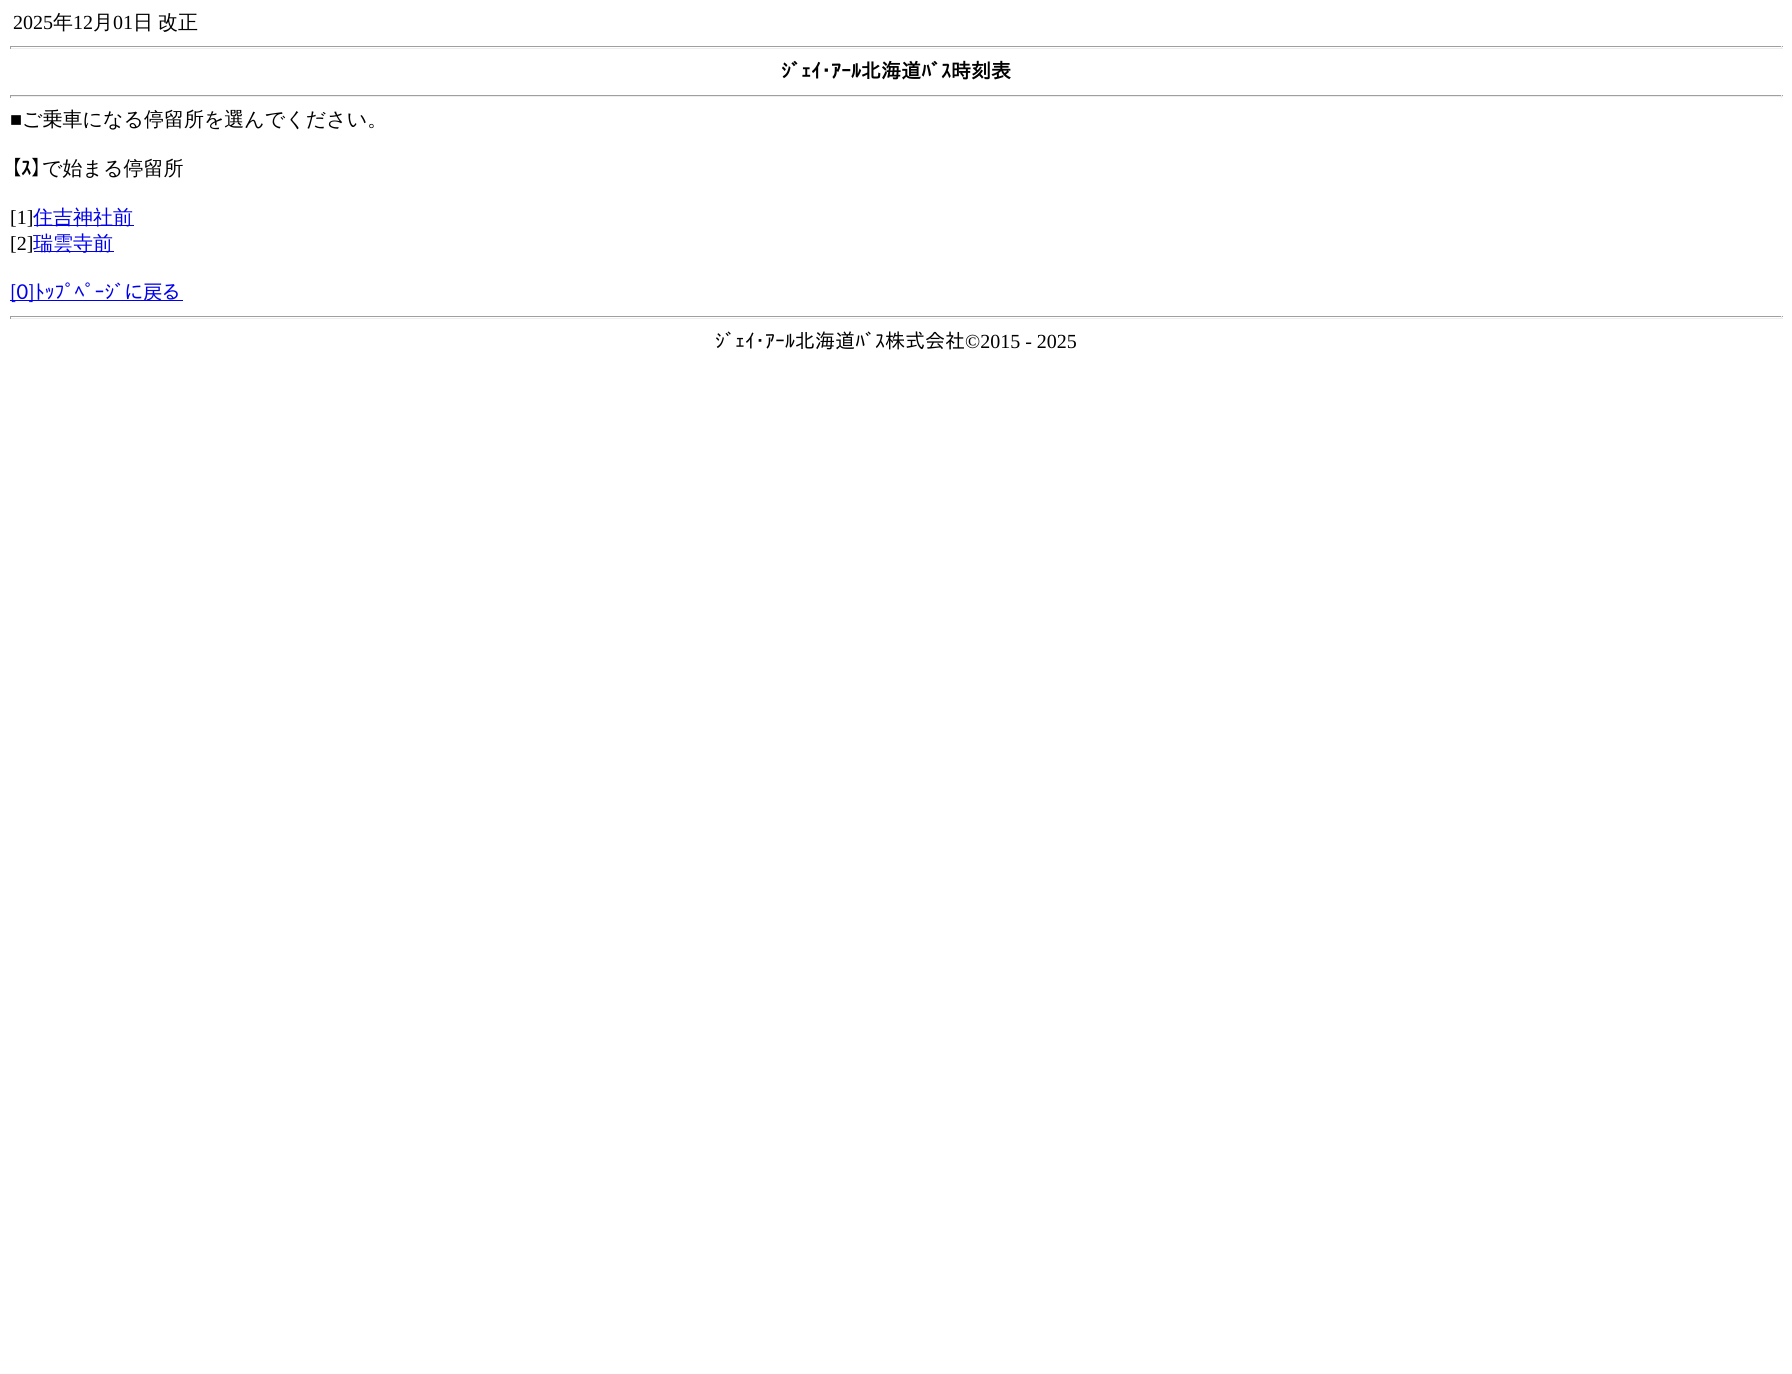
#include <cairo/cairo.h>
#include <math.h>
#include <stddef.h>

typedef struct { double x, y, w, h; unsigned color; } box_t;
static cairo_t *cr;

static void rgb(unsigned color)
{
	cairo_set_source_rgb(cr, (color >> 16) / 255.0, (color >> 8 & 255) / 255.0, (color & 255) / 255.0);
}

static void tracked(double x, double y, const char *s, double letter, double word)
{
	cairo_move_to(cr, x, y);
	while (*s) {
		char ch[5] = {0};
		int n = 0;
		do ch[n++] = *s++; while ((*s & 0xC0) == 0x80);
		cairo_show_text(cr, ch);
		cairo_rel_move_to(cr, letter + word * (*ch == ' '), 0);
	}
}

int main(void) {
	cairo_surface_t *surface = cairo_image_surface_create(CAIRO_FORMAT_RGB24, 1792, 1374);
	cr = cairo_create(surface);
	cairo_font_options_t *options = cairo_font_options_create();
	cairo_font_options_set_hint_metrics(options, CAIRO_HINT_METRICS_OFF);
	cairo_font_options_set_hint_style(options, CAIRO_HINT_STYLE_NONE);
	cairo_set_font_options(cr, options);
	cairo_set_miter_limit(cr, 4);
	rgb(0xffffff);
	cairo_paint(cr);
	{
		static const box_t items[] = {
			{10, 46, 1773, 1, 0x9f9f9f},
			{1781, 46, 1, 3, 0xeeeeee},
			{10, 48, 1773, 1, 0xeeeeee},
			{10, 46, 1, 3, 0x9f9f9f},
			{10, 95, 1773, 1, 0x9f9f9f},
			{1781, 95, 1, 3, 0xeeeeee},
			{10, 96, 1773, 1, 0xeeeeee},
			{10, 95, 1, 3, 0x9f9f9f},
			{34, 225, 100, 1, 0x0000ee},
			{34, 251, 80, 1, 0x0000ee},
			{10, 300, 173, 1, 0x0000ee},
			{10, 316, 1773, 1, 0x9f9f9f},
			{1781, 316, 1, 3, 0xeeeeee},
			{10, 318, 1773, 1, 0xeeeeee},
			{10, 316, 1, 3, 0x9f9f9f},
		};
		for (size_t i = 0; i < sizeof items / sizeof *items; i++) {
			rgb(items[i].color);
			cairo_rectangle(cr, items[i].x, items[i].y, items[i].w, items[i].h);
			cairo_fill(cr);
		}
	}
	cairo_select_font_face(cr, "Liberation Serif", CAIRO_FONT_SLANT_NORMAL, CAIRO_FONT_WEIGHT_NORMAL);
	cairo_set_font_size(cr, 20);
	rgb(0x000000);
	cairo_move_to(cr, 13, 29);
	cairo_show_text(cr, "2025");
	cairo_select_font_face(cr, "WenQuanYi Zen Hei Medium", CAIRO_FONT_SLANT_NORMAL, CAIRO_FONT_WEIGHT_NORMAL);
	cairo_move_to(cr, 53, 29);
	cairo_show_text(cr, "年");
	cairo_select_font_face(cr, "Liberation Serif", CAIRO_FONT_SLANT_NORMAL, CAIRO_FONT_WEIGHT_NORMAL);
	cairo_move_to(cr, 73, 29);
	cairo_show_text(cr, "12");
	cairo_select_font_face(cr, "WenQuanYi Zen Hei Medium", CAIRO_FONT_SLANT_NORMAL, CAIRO_FONT_WEIGHT_NORMAL);
	cairo_move_to(cr, 93, 29);
	cairo_show_text(cr, "月");
	cairo_select_font_face(cr, "Liberation Serif", CAIRO_FONT_SLANT_NORMAL, CAIRO_FONT_WEIGHT_NORMAL);
	cairo_move_to(cr, 113, 29);
	cairo_show_text(cr, "01");
	cairo_select_font_face(cr, "WenQuanYi Zen Hei Medium", CAIRO_FONT_SLANT_NORMAL, CAIRO_FONT_WEIGHT_NORMAL);
	tracked(133, 29, "日 改正", 0, -1);
	cairo_select_font_face(cr, "IPAPGothic", CAIRO_FONT_SLANT_NORMAL, CAIRO_FONT_WEIGHT_BOLD);
	cairo_move_to(cr, 781, 78);
	cairo_show_text(cr, "ｼﾞｪｲ･ｱｰﾙ北海道ﾊﾞｽ時刻表");
	cairo_select_font_face(cr, "Liberation Serif", CAIRO_FONT_SLANT_NORMAL, CAIRO_FONT_WEIGHT_NORMAL);
	cairo_move_to(cr, 10, 126);
	cairo_show_text(cr, "■");
	cairo_select_font_face(cr, "WenQuanYi Zen Hei Medium", CAIRO_FONT_SLANT_NORMAL, CAIRO_FONT_WEIGHT_NORMAL);
	cairo_move_to(cr, 22, 126);
	cairo_show_text(cr, "ご乗車になる停留所を選んでください。");
	cairo_select_font_face(cr, "IPAPGothic", CAIRO_FONT_SLANT_NORMAL, CAIRO_FONT_WEIGHT_BOLD);
	cairo_move_to(cr, 10, 175);
	cairo_show_text(cr, "【ｽ】");
	cairo_select_font_face(cr, "WenQuanYi Zen Hei Medium", CAIRO_FONT_SLANT_NORMAL, CAIRO_FONT_WEIGHT_NORMAL);
	cairo_move_to(cr, 42, 175);
	cairo_show_text(cr, "で始まる停留所");
	cairo_select_font_face(cr, "Liberation Serif", CAIRO_FONT_SLANT_NORMAL, CAIRO_FONT_WEIGHT_NORMAL);
	cairo_move_to(cr, 10, 224);
	cairo_show_text(cr, "[1]");
	cairo_select_font_face(cr, "WenQuanYi Zen Hei Medium", CAIRO_FONT_SLANT_NORMAL, CAIRO_FONT_WEIGHT_NORMAL);
	rgb(0x0000ee);
	cairo_move_to(cr, 33, 224);
	cairo_show_text(cr, "住吉神社前");
	cairo_select_font_face(cr, "Liberation Serif", CAIRO_FONT_SLANT_NORMAL, CAIRO_FONT_WEIGHT_NORMAL);
	rgb(0x000000);
	cairo_move_to(cr, 10, 250);
	cairo_show_text(cr, "[2]");
	cairo_select_font_face(cr, "WenQuanYi Zen Hei Medium", CAIRO_FONT_SLANT_NORMAL, CAIRO_FONT_WEIGHT_NORMAL);
	rgb(0x0000ee);
	cairo_move_to(cr, 33, 250);
	cairo_show_text(cr, "瑞雲寺前");
	cairo_select_font_face(cr, "IPAPGothic", CAIRO_FONT_SLANT_NORMAL, CAIRO_FONT_WEIGHT_NORMAL);
	cairo_move_to(cr, 10, 299);
	cairo_show_text(cr, "[0]ﾄｯﾌﾟﾍﾟｰｼﾞに戻る");
	rgb(0x000000);
	cairo_move_to(cr, 715, 348);
	cairo_show_text(cr, "ｼﾞｪｲ･ｱｰﾙ北海道ﾊﾞｽ株式会社");
	cairo_select_font_face(cr, "Liberation Serif", CAIRO_FONT_SLANT_NORMAL, CAIRO_FONT_WEIGHT_NORMAL);
	cairo_move_to(cr, 965, 348);
	cairo_show_text(cr, "©2015 - 2025");
	cairo_surface_write_to_png(surface, "page.png");
	cairo_font_options_destroy(options);
	cairo_destroy(cr);
	cairo_surface_destroy(surface);
	return 0;
}
